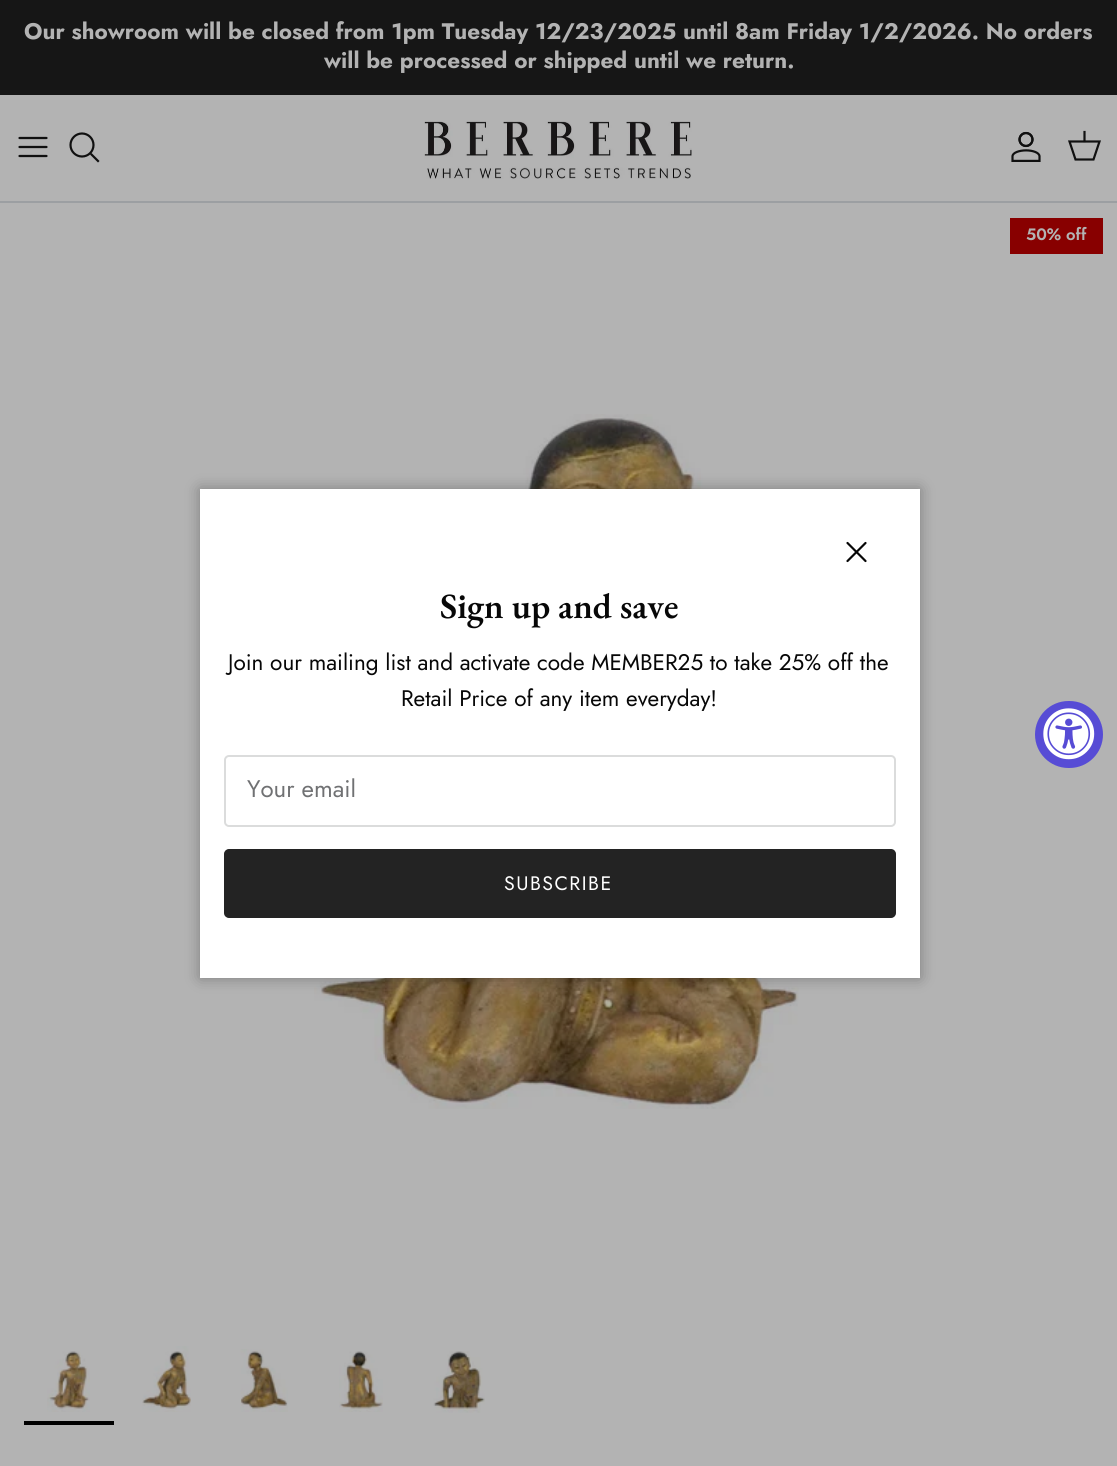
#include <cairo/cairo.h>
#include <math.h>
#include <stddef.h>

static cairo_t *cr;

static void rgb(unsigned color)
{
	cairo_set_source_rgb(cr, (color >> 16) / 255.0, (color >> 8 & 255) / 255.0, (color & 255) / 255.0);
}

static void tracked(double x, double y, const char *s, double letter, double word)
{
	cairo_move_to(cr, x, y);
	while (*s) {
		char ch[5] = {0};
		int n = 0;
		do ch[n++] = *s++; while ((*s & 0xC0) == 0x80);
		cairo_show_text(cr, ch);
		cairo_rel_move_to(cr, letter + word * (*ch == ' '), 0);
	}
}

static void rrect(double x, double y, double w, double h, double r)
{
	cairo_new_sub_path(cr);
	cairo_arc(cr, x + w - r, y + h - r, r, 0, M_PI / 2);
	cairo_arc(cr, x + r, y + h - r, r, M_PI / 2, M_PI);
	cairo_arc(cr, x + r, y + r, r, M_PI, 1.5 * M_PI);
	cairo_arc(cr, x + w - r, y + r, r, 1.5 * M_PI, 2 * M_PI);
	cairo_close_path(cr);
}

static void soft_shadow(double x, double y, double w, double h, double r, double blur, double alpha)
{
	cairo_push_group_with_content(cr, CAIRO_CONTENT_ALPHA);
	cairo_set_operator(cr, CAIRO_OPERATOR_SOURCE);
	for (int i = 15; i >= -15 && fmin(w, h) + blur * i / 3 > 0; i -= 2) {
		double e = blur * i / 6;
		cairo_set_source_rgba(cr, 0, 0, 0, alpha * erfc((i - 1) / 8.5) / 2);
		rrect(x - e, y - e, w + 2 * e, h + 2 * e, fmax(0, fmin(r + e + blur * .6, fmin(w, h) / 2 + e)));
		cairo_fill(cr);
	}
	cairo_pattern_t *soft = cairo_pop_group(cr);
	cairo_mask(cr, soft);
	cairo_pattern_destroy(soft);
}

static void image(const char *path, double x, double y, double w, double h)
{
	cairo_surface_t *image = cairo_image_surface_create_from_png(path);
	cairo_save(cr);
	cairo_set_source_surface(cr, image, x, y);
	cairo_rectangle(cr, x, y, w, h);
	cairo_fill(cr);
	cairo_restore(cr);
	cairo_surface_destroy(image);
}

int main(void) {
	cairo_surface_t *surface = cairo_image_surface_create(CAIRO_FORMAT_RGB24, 1117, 1466);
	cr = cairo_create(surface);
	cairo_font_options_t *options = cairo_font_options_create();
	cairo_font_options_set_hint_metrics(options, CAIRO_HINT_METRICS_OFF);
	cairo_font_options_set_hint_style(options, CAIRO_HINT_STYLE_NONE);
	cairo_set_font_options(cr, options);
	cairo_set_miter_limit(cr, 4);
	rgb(0xb3b3b3);
	cairo_paint(cr);
	rgb(0x161616);
	cairo_rectangle(cr, 0, 0, 1117, 95);
	cairo_fill(cr);
	rgb(0x9c9fa2);
	cairo_rectangle(cr, 0, 201, 1117, 2);
	cairo_fill(cr);
	cairo_new_path(cr);
	cairo_move_to(cr, 19.5, 147);
	cairo_line_to(cr, 46.5, 147);
	cairo_move_to(cr, 19.5, 138);
	cairo_line_to(cr, 46.5, 138);
	cairo_move_to(cr, 19.5, 156);
	cairo_line_to(cr, 46.5, 156);
	rgb(0x101010);
	cairo_set_line_width(cr, 2.2);
	cairo_set_line_cap(cr, CAIRO_LINE_CAP_ROUND);
	cairo_set_line_join(cr, CAIRO_LINE_JOIN_ROUND);
	cairo_stroke(cr);
	cairo_arc(cr, 82, 145, 11.5, 0, 2 * M_PI);
	cairo_set_line_cap(cr, CAIRO_LINE_CAP_BUTT);
	cairo_set_line_join(cr, CAIRO_LINE_JOIN_MITER);
	cairo_stroke(cr);
	cairo_new_path(cr);
	cairo_move_to(cr, 91.5, 154.5);
	cairo_line_to(cr, 98, 161);
	cairo_set_line_cap(cr, CAIRO_LINE_CAP_SQUARE);
	cairo_stroke(cr);
	image("img/1.png", 424, 121, 268, 58);
	image("img/2.png", 1011, 131, 30, 31);
	cairo_new_path(cr);
	cairo_move_to(cr, 1069.5, 141.5);
	cairo_line_to(cr, 1099.5, 141.5);
	cairo_line_to(cr, 1093.5, 159.5);
	cairo_line_to(cr, 1075.5, 159.5);
	cairo_close_path(cr);
	cairo_set_line_cap(cr, CAIRO_LINE_CAP_BUTT);
	cairo_stroke(cr);
	cairo_new_path(cr);
	cairo_move_to(cr, 1084.5, 141);
	cairo_line_to(cr, 1084.5, 132);
	cairo_set_line_cap(cr, CAIRO_LINE_CAP_SQUARE);
	cairo_stroke(cr);
	rgb(0x880000);
	cairo_rectangle(cr, 1010, 218, 93, 36);
	cairo_fill(cr);
	image("img/3.png", 314, 414, 485, 695);
	image("img/4.png", 47, 1351, 43, 61);
	rgb(0x000000);
	cairo_rectangle(cr, 24, 1421, 90, 4);
	cairo_fill(cr);
	image("img/5.png", 142, 1346, 49, 66);
	image("img/6.png", 240, 1349, 48, 63);
	image("img/7.png", 339, 1351, 44, 61);
	image("img/8.png", 433, 1351, 52, 62);
	rgb(0x000000);
	soft_shadow(200, 489, 720, 489, 0, 7.5, 0.3);
	rgb(0xffffff);
	cairo_rectangle(cr, 200, 489, 720, 489);
	cairo_fill(cr);
	cairo_new_path(cr);
	cairo_move_to(cr, 865.5, 543);
	cairo_line_to(cr, 847.5, 561);
	cairo_move_to(cr, 847.5, 543);
	cairo_line_to(cr, 865.5, 561);
	rgb(0x070707);
	cairo_set_line_cap(cr, CAIRO_LINE_CAP_ROUND);
	cairo_set_line_join(cr, CAIRO_LINE_JOIN_ROUND);
	cairo_stroke(cr);
	rrect(225, 756, 670, 70, 4);
	rgb(0xdbdcdc);
	cairo_set_line_width(cr, 2);
	cairo_set_line_cap(cr, CAIRO_LINE_CAP_BUTT);
	cairo_set_line_join(cr, CAIRO_LINE_JOIN_MITER);
	cairo_stroke(cr);
	rgb(0x232323);
	rrect(225, 850, 670, 67, 4);
	cairo_fill_preserve(cr);
	cairo_stroke(cr);
	rgb(0x574cd5);
	rrect(1035, 701, 68, 67, 33.5);
	cairo_fill(cr);
	image("img/9.png", 1043, 708, 52, 52);
	cairo_select_font_face(cr, "Jost", CAIRO_FONT_SLANT_NORMAL, CAIRO_FONT_WEIGHT_BOLD);
	cairo_set_font_size(cr, 22.5);
	rgb(0xb3b3b3);
	cairo_move_to(cr, 24, 39);
	cairo_show_text(cr, "Our showroom will be closed from 1pm Tuesday 12/23/2025 until 8am Friday 1/2/2026. No orders");
	cairo_move_to(cr, 324, 68);
	cairo_show_text(cr, "will be processed or shipped until we return.");
	cairo_select_font_face(cr, "Jost SemiBold", CAIRO_FONT_SLANT_NORMAL, CAIRO_FONT_WEIGHT_NORMAL);
	cairo_set_font_size(cr, 16.5);
	cairo_move_to(cr, 1026, 240);
	cairo_show_text(cr, "50% off");
	cairo_select_font_face(cr, "EB Garamond SemiBold", CAIRO_FONT_SLANT_NORMAL, CAIRO_FONT_WEIGHT_NORMAL);
	cairo_set_font_size(cr, 35.5);
	rgb(0x070707);
	cairo_move_to(cr, 440, 618);
	cairo_show_text(cr, "Sign up and save");
	cairo_select_font_face(cr, "Jost", CAIRO_FONT_SLANT_NORMAL, CAIRO_FONT_WEIGHT_NORMAL);
	cairo_set_font_size(cr, 22.5);
	cairo_move_to(cr, 228, 670);
	cairo_show_text(cr, "Join our mailing list and activate code MEMBER25 to take 25% off the");
	cairo_move_to(cr, 401, 706);
	cairo_show_text(cr, "Retail Price of any item everyday!");
	cairo_set_font_size(cr, 24);
	rgb(0x707173);
	cairo_move_to(cr, 247, 797);
	cairo_show_text(cr, "Your email");
	cairo_set_font_size(cr, 19.5);
	rgb(0xffffff);
	tracked(504, 890, "SUBSCRIBE", 1.5, 0);
	cairo_surface_write_to_png(surface, "page.png");
	cairo_font_options_destroy(options);
	cairo_destroy(cr);
	cairo_surface_destroy(surface);
	return 0;
}
